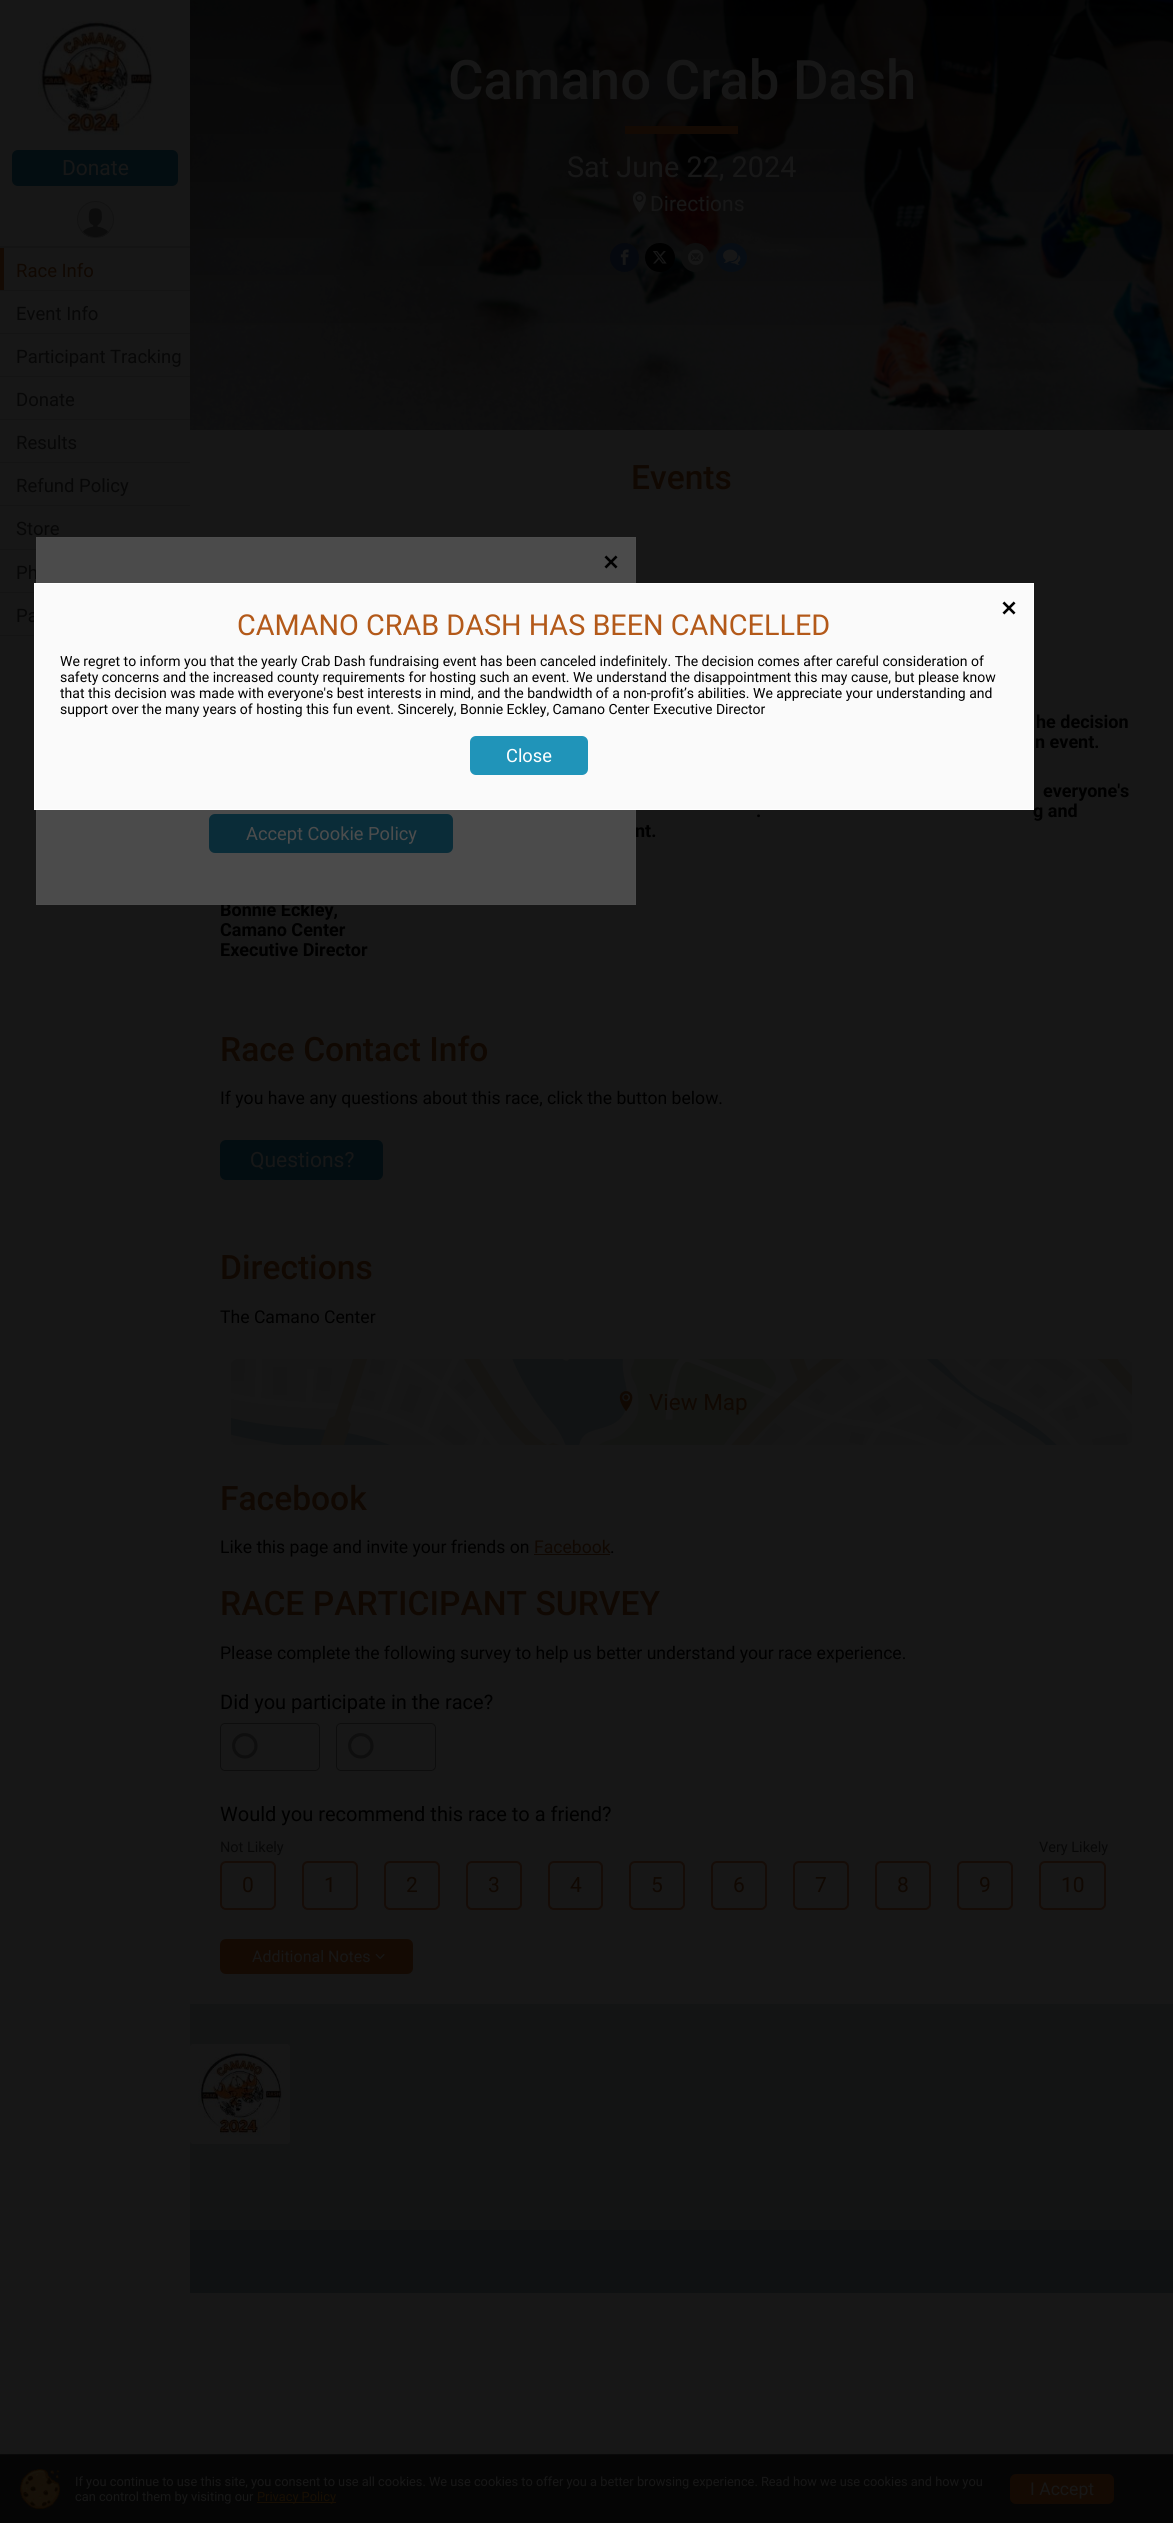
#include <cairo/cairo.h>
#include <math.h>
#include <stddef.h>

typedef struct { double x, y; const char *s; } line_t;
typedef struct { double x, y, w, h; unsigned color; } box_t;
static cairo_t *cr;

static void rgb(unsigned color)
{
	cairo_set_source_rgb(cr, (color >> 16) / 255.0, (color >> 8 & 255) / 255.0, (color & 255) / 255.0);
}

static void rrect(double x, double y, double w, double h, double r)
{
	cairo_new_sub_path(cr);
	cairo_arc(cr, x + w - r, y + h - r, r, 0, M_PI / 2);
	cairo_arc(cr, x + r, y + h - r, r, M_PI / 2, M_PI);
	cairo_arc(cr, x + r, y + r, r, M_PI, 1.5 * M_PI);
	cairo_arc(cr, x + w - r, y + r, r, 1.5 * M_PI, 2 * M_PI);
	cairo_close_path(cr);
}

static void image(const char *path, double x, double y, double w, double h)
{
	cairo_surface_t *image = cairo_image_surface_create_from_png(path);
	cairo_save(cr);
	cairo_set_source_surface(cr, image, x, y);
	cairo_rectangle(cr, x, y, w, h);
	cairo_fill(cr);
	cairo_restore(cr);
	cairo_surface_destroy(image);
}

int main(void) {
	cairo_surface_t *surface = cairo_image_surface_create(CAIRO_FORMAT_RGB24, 1173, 2523);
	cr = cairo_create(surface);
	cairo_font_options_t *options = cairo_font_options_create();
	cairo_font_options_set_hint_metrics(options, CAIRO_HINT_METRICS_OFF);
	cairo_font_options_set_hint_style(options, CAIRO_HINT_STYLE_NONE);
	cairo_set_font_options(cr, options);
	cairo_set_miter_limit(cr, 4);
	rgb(0x171717);
	cairo_paint(cr);
	image("img/1.png", 190, 0, 983, 430);
	image("img/2.png", 190, 0, 983, 333);
	rgb(0x140a03);
	cairo_rectangle(cr, 625, 126, 113, 8);
	cairo_fill(cr);
	image("img/3.png", 632, 191, 14, 22);
	rgb(0x05080e);
	cairo_arc(cr, 624.5, 257.5, 14.5, 0, 2 * M_PI);
	cairo_fill(cr);
	image("img/4.png", 620, 249, 9, 16);
	rgb(0x000000);
	rrect(645, 243, 30, 29, 14.5);
	cairo_fill(cr);
	image("img/5.png", 653, 251, 14, 13);
	rgb(0x0e0e0e);
	cairo_arc(cr, 695.5, 257.5, 14.5, 0, 2 * M_PI);
	cairo_fill(cr);
	image("img/6.png", 688, 249, 16, 16);
	rgb(0x070d14);
	cairo_new_path(cr);
	cairo_move_to(cr, 731.5, 243);
	cairo_curve_to(cr, 740, 243, 747, 249.5, 747, 257.5);
	cairo_curve_to(cr, 747, 265.5, 740, 272, 731.5, 272);
	cairo_curve_to(cr, 723, 272, 716, 265.5, 716, 257.5);
	cairo_curve_to(cr, 716, 249.5, 723, 243, 731.5, 243);
	cairo_close_path(cr);
	cairo_fill(cr);
	image("img/7.png", 723, 249, 18, 16);
	image("img/8.png", 38, 21, 115, 114);
	rgb(0x030d11);
	rrect(12, 150, 166, 36, 6);
	cairo_fill(cr);
	image("img/9.png", 78, 202, 35, 35);
	cairo_arc(cr, 95.5, 219.5, 18, 0, 2 * M_PI);
	rgb(0x121212);
	cairo_set_line_width(cr, 1);
	cairo_stroke(cr);
	{
		static const box_t items[] = {
			{0, 246, 190, 2, 0x141414},
			{0, 248, 4, 42, 0x140a03},
			{0, 290, 190, 1, 0x141414},
			{0, 333, 190, 1, 0x141414},
			{0, 376, 190, 1, 0x141414},
			{0, 419, 190, 1, 0x141414},
			{0, 462, 190, 1, 0x141414},
			{0, 505, 190, 1, 0x141414},
			{0, 549, 36, 1, 0x141414},
			{0, 592, 34, 1, 0x141414},
			{0, 635, 34, 1, 0x141414},
		};
		for (size_t i = 0; i < sizeof items / sizeof *items; i++) {
			rgb(items[i].color);
			cairo_rectangle(cr, items[i].x, items[i].y, items[i].w, items[i].h);
			cairo_fill(cr);
		}
	}
	rgb(0x030d11);
	rrect(220, 1140, 163, 40, 6);
	cairo_fill(cr);
	image("img/10.png", 231, 1359, 901, 86);
	image("img/11.png", 619, 1391, 14, 21);
	rgb(0x100802);
	cairo_rectangle(cr, 534, 1554, 76, 1);
	cairo_fill(cr);
	rrect(220.5, 1723.5, 99, 47, 4.5);
	rgb(0x0d0d0d);
	cairo_stroke(cr);
	image("img/12.png", 232, 1733, 26, 26);
	rrect(336.5, 1723.5, 99, 47, 4.5);
	cairo_stroke(cr);
	image("img/12.png", 348, 1733, 26, 26);
	rrect(221, 1862, 54, 47, 5);
	rgb(0x150c07);
	cairo_set_line_width(cr, 2);
	cairo_stroke(cr);
	rrect(303, 1862, 54, 47, 5);
	cairo_stroke(cr);
	rrect(385, 1862, 54, 47, 5);
	cairo_stroke(cr);
	rrect(467, 1862, 54, 47, 5);
	cairo_stroke(cr);
	rrect(549, 1862, 53, 47, 5);
	cairo_stroke(cr);
	rrect(630, 1862, 54, 47, 5);
	cairo_stroke(cr);
	rrect(712, 1862, 54, 47, 5);
	cairo_stroke(cr);
	rrect(794, 1862, 54, 47, 5);
	cairo_stroke(cr);
	rrect(876, 1862, 54, 47, 5);
	cairo_stroke(cr);
	rrect(958, 1862, 54, 47, 5);
	cairo_stroke(cr);
	rrect(1040, 1862, 65, 47, 5);
	cairo_stroke(cr);
	rgb(0x140a03);
	rrect(220, 1939, 193, 35, 6);
	cairo_fill(cr);
	image("img/13.png", 375, 1954, 10, 6);
	rgb(0x0f1112);
	cairo_rectangle(cr, 190, 2230, 983, 63);
	cairo_fill(cr);
	rgb(0x131414);
	cairo_rectangle(cr, 190, 2004, 983, 226);
	cairo_fill(cr);
	rgb(0x171717);
	rrect(190, 2044, 100, 100, 3);
	cairo_fill(cr);
	image("img/14.png", 198, 2052, 84, 84);
	rgb(0x050505);
	cairo_rectangle(cr, 0, 2455, 1173, 68);
	cairo_fill(cr);
	rgb(0x090909);
	cairo_rectangle(cr, 0, 2454, 1173, 1);
	cairo_fill(cr);
	image("img/17.png", 20, 2469, 40, 40);
	rgb(0x170e03);
	cairo_rectangle(cr, 257, 2502, 79, 1);
	cairo_fill(cr);
	rgb(0x140a03);
	rrect(1010, 2474, 104, 30, 6);
	cairo_fill(cr);
	cairo_select_font_face(cr, "Roboto Medium", CAIRO_FONT_SLANT_NORMAL, CAIRO_FONT_WEIGHT_NORMAL);
	cairo_set_font_size(cr, 54.5);
	rgb(0x171717);
	cairo_move_to(cr, 448, 99);
	cairo_show_text(cr, "Camano Crab Dash");
	cairo_select_font_face(cr, "Roboto", CAIRO_FONT_SLANT_NORMAL, CAIRO_FONT_WEIGHT_NORMAL);
	cairo_set_font_size(cr, 28.8);
	cairo_move_to(cr, 567, 177);
	cairo_show_text(cr, "Sat June 22, 2024");
	cairo_set_font_size(cr, 21);
	cairo_move_to(cr, 650, 211);
	cairo_show_text(cr, "Directions");
	cairo_move_to(cr, 62, 175);
	cairo_show_text(cr, "Donate");
	cairo_set_font_size(cr, 18.5);
	rgb(0x100802);
	cairo_move_to(cr, 16, 277);
	cairo_show_text(cr, "Race Info");
	rgb(0x070707);
	{
		static const line_t items[] = {
			{16, 320, "Event Info"},
			{16, 363, "Participant Tracking"},
			{16, 406, "Donate"},
			{16, 449, "Results"},
			{16, 492, "Refund Policy"},
			{16, 535, "Store"},
			{16, 579, "Ph"},
			{16, 622, "Pa"},
		};
		for (size_t i = 0; i < sizeof items / sizeof *items; i++) {
			cairo_move_to(cr, items[i].x, items[i].y);
			cairo_show_text(cr, items[i].s);
		}
	}
	cairo_select_font_face(cr, "Roboto Medium", CAIRO_FONT_SLANT_NORMAL, CAIRO_FONT_WEIGHT_NORMAL);
	cairo_set_font_size(cr, 33.6);
	rgb(0x100802);
	cairo_move_to(cr, 631, 489);
	cairo_show_text(cr, "Events");
	cairo_select_font_face(cr, "Roboto", CAIRO_FONT_SLANT_NORMAL, CAIRO_FONT_WEIGHT_BOLD);
	cairo_set_font_size(cr, 18);
	rgb(0x000000);
	{
		static const line_t items[] = {
			{1036, 728, "he decision"},
			{1035, 748, "n event."},
			{1043, 797, "everyone's"},
			{756, 817, "."},
			{1033, 817, "g and"},
			{635, 837, "nt."},
			{220, 916, "Bonnie Eckley,"},
			{220, 936, "Camano Center"},
			{220, 956, "Executive Director"},
		};
		for (size_t i = 0; i < sizeof items / sizeof *items; i++) {
			cairo_move_to(cr, items[i].x, items[i].y);
			cairo_show_text(cr, items[i].s);
		}
	}
	cairo_select_font_face(cr, "Roboto Medium", CAIRO_FONT_SLANT_NORMAL, CAIRO_FONT_WEIGHT_NORMAL);
	cairo_set_font_size(cr, 33.6);
	rgb(0x100802);
	cairo_move_to(cr, 220, 1061);
	cairo_show_text(cr, "Race Contact Info");
	cairo_select_font_face(cr, "Roboto", CAIRO_FONT_SLANT_NORMAL, CAIRO_FONT_WEIGHT_NORMAL);
	cairo_set_font_size(cr, 17.6);
	rgb(0x000000);
	cairo_move_to(cr, 220, 1104);
	cairo_show_text(cr, "If you have any questions about this race, click the button below.");
	cairo_set_font_size(cr, 21);
	rgb(0x171717);
	cairo_move_to(cr, 250, 1167);
	cairo_show_text(cr, "Questions?");
	cairo_select_font_face(cr, "Roboto Medium", CAIRO_FONT_SLANT_NORMAL, CAIRO_FONT_WEIGHT_NORMAL);
	cairo_set_font_size(cr, 33.6);
	rgb(0x100802);
	cairo_move_to(cr, 220, 1279);
	cairo_show_text(cr, "Directions");
	cairo_select_font_face(cr, "Roboto", CAIRO_FONT_SLANT_NORMAL, CAIRO_FONT_WEIGHT_NORMAL);
	cairo_set_font_size(cr, 17.6);
	rgb(0x000000);
	cairo_move_to(cr, 220, 1323);
	cairo_show_text(cr, "The Camano Center");
	cairo_set_font_size(cr, 22.5);
	rgb(0x100802);
	cairo_move_to(cr, 649, 1410);
	cairo_show_text(cr, "View Map");
	cairo_select_font_face(cr, "Roboto Medium", CAIRO_FONT_SLANT_NORMAL, CAIRO_FONT_WEIGHT_NORMAL);
	cairo_set_font_size(cr, 33.6);
	cairo_move_to(cr, 220, 1510);
	cairo_show_text(cr, "Facebook");
	cairo_select_font_face(cr, "Roboto", CAIRO_FONT_SLANT_NORMAL, CAIRO_FONT_WEIGHT_NORMAL);
	cairo_set_font_size(cr, 17.6);
	rgb(0x000000);
	cairo_move_to(cr, 220, 1553);
	cairo_show_text(cr, "Like this page and invite your friends on");
	rgb(0x100802);
	cairo_move_to(cr, 534, 1553);
	cairo_show_text(cr, "Facebook");
	rgb(0x000000);
	cairo_move_to(cr, 610, 1553);
	cairo_show_text(cr, ".");
	cairo_select_font_face(cr, "Roboto Medium", CAIRO_FONT_SLANT_NORMAL, CAIRO_FONT_WEIGHT_NORMAL);
	cairo_set_font_size(cr, 33.6);
	rgb(0x100802);
	cairo_move_to(cr, 220, 1615);
	cairo_show_text(cr, "RACE PARTICIPANT SURVEY");
	cairo_select_font_face(cr, "Roboto", CAIRO_FONT_SLANT_NORMAL, CAIRO_FONT_WEIGHT_NORMAL);
	cairo_set_font_size(cr, 17.6);
	rgb(0x000000);
	cairo_move_to(cr, 220, 1659);
	cairo_show_text(cr, "Please complete the following survey to help us better understand your race experience.");
	cairo_set_font_size(cr, 20);
	cairo_move_to(cr, 220, 1709);
	cairo_show_text(cr, "Did you participate in the race?");
	cairo_move_to(cr, 220, 1821);
	cairo_show_text(cr, "Would you recommend this race to a friend?");
	cairo_set_font_size(cr, 14.5);
	rgb(0x070707);
	cairo_move_to(cr, 220, 1852);
	cairo_show_text(cr, "Not Likely");
	cairo_set_font_size(cr, 21);
	rgb(0x100802);
	{
		static const line_t items[] = {
			{242, 1892, "0"},
			{324, 1892, "1"},
			{406, 1892, "2"},
			{488, 1892, "3"},
			{570, 1892, "4"},
			{651, 1892, "5"},
			{733, 1892, "6"},
			{815, 1892, "7"},
			{897, 1892, "8"},
			{979, 1892, "9"},
		};
		for (size_t i = 0; i < sizeof items / sizeof *items; i++) {
			cairo_move_to(cr, items[i].x, items[i].y);
			cairo_show_text(cr, items[i].s);
		}
	}
	cairo_set_font_size(cr, 14.5);
	rgb(0x070707);
	cairo_move_to(cr, 1039, 1852);
	cairo_show_text(cr, "Very Likely");
	cairo_set_font_size(cr, 21);
	rgb(0x100802);
	cairo_move_to(cr, 1061, 1892);
	cairo_show_text(cr, "10");
	cairo_set_font_size(cr, 16);
	rgb(0x171717);
	cairo_move_to(cr, 252, 1962);
	cairo_show_text(cr, "Additional Notes");
	cairo_rectangle(cr, 36.5, 537.5, 599, 367);
	rgb(0x4d4d4d);
	cairo_set_line_width(cr, 1);
	cairo_stroke(cr);
	cairo_rectangle(cr, 34.5, 583.5, 999, 226);
	rgb(0xffffff);
	cairo_stroke(cr);
	rgb(0xfafafa);
	cairo_rectangle(cr, 35, 584, 998, 225);
	cairo_fill(cr);
	image("img/15.png", 1002, 601, 14, 14);
	rgb(0x2094b9);
	rrect(470, 736, 118, 39, 6);
	cairo_fill(cr);
	cairo_set_font_size(cr, 18.25);
	rgb(0xffffff);
	cairo_move_to(cr, 506, 762);
	cairo_show_text(cr, "Close");
	cairo_set_font_size(cr, 14);
	rgb(0x000000);
	{
		static const line_t items[] = {
			{60, 714, "support over the many years of hosting this fun event. Sincerely, Bonnie Eckley, Camano Center Executive Director"},
			{60, 698, "that this decision was made with everyone's best interests in mind, and the bandwidth of a non-profit’s abilities. We appreciate your understanding and"},
			{60, 682, "safety concerns and the increased county requirements for hosting such an event. We understand the disappointment this may cause, but please know"},
			{60, 666, "We regret to inform you that the yearly Crab Dash fundraising event has been canceled indefinitely. The decision comes after careful consideration of"},
		};
		for (size_t i = 0; i < sizeof items / sizeof *items; i++) {
			cairo_move_to(cr, items[i].x, items[i].y);
			cairo_show_text(cr, items[i].s);
		}
	}
	cairo_set_font_size(cr, 28.8);
	rgb(0xb35919);
	cairo_move_to(cr, 237, 635);
	cairo_show_text(cr, "CAMANO CRAB DASH HAS BEEN CANCELLED");
	rgb(0x4b4b4b);
	cairo_rectangle(cr, 37, 538, 598, 45);
	cairo_fill(cr);
	image("img/16.png", 604, 555, 14, 14);
	cairo_rectangle(cr, 37, 810, 598, 94);
	cairo_fill(cr);
	rgb(0x0a2c38);
	rrect(209, 814, 244, 39, 6);
	cairo_fill(cr);
	cairo_set_font_size(cr, 18.25);
	rgb(0x4d4d4d);
	cairo_move_to(cr, 246, 840);
	cairo_show_text(cr, "Accept Cookie Policy");
	cairo_set_font_size(cr, 12.8);
	rgb(0x171717);
	cairo_move_to(cr, 75, 2486);
	cairo_show_text(cr, "If you continue to use this site, you consent to use all cookies. We use cookies to offer you a better browsing experience. Read how we use cookies and how you");
	cairo_move_to(cr, 75, 2501);
	cairo_show_text(cr, "can control them by visiting our");
	rgb(0x170e03);
	cairo_move_to(cr, 257, 2501);
	cairo_show_text(cr, "Privacy Policy");
	cairo_set_font_size(cr, 17.6);
	rgb(0x171717);
	cairo_move_to(cr, 1030, 2495);
	cairo_show_text(cr, "I Accept");
	cairo_surface_write_to_png(surface, "page.png");
	cairo_font_options_destroy(options);
	cairo_destroy(cr);
	cairo_surface_destroy(surface);
	return 0;
}
